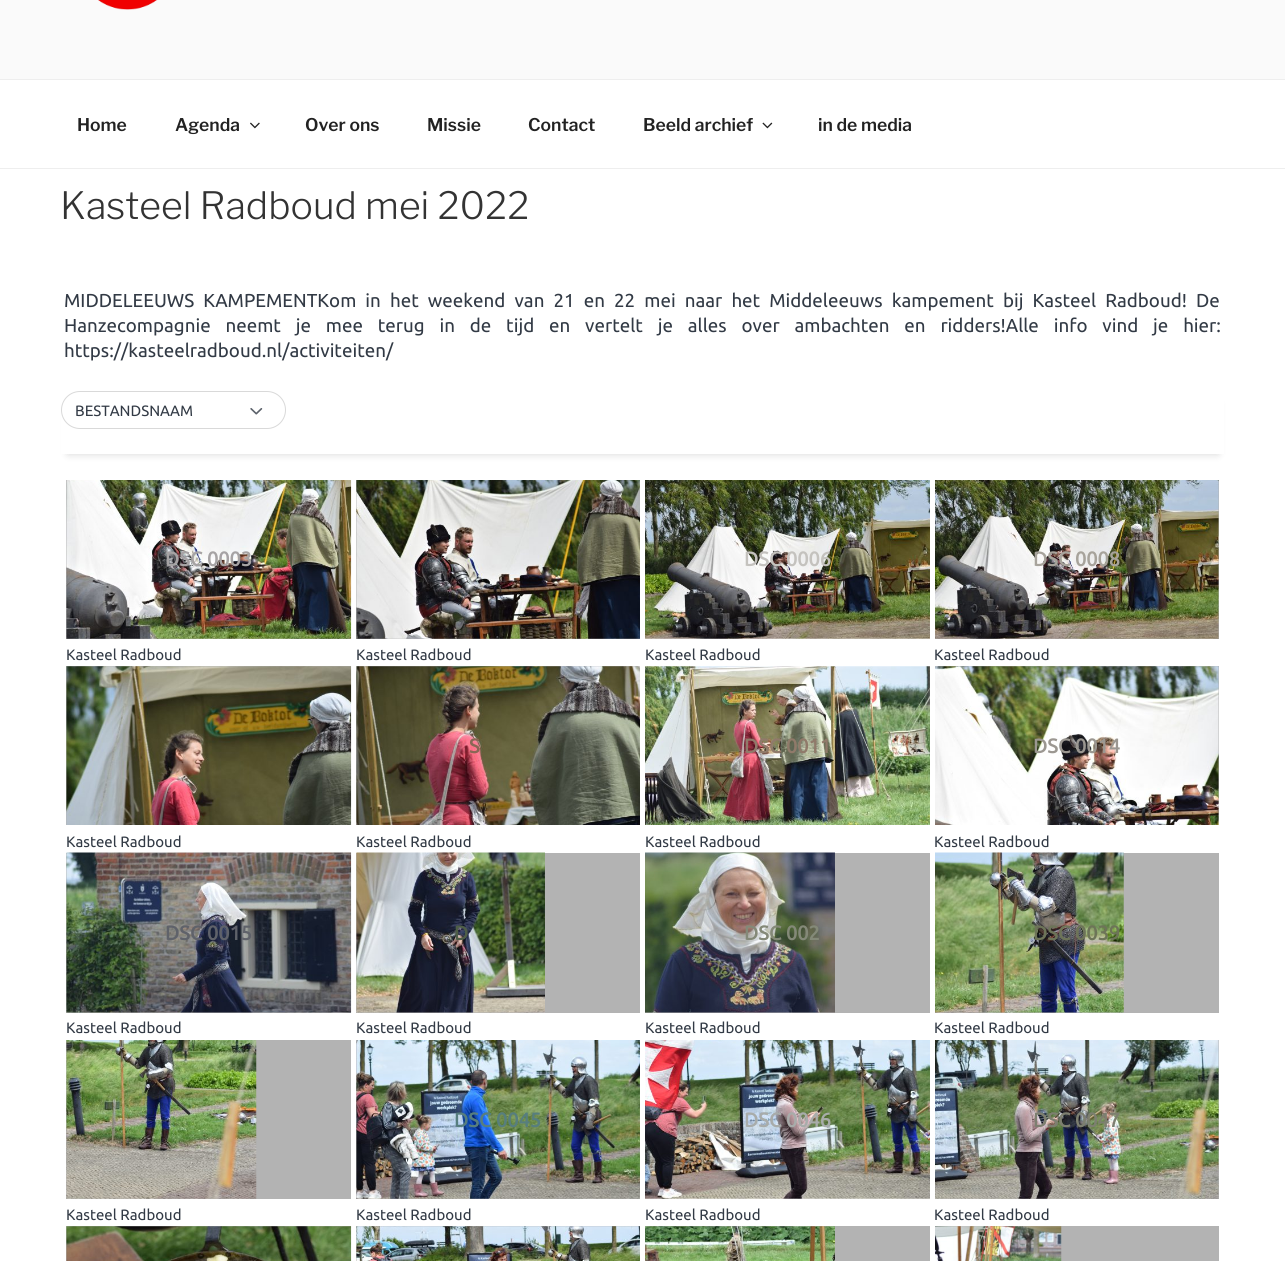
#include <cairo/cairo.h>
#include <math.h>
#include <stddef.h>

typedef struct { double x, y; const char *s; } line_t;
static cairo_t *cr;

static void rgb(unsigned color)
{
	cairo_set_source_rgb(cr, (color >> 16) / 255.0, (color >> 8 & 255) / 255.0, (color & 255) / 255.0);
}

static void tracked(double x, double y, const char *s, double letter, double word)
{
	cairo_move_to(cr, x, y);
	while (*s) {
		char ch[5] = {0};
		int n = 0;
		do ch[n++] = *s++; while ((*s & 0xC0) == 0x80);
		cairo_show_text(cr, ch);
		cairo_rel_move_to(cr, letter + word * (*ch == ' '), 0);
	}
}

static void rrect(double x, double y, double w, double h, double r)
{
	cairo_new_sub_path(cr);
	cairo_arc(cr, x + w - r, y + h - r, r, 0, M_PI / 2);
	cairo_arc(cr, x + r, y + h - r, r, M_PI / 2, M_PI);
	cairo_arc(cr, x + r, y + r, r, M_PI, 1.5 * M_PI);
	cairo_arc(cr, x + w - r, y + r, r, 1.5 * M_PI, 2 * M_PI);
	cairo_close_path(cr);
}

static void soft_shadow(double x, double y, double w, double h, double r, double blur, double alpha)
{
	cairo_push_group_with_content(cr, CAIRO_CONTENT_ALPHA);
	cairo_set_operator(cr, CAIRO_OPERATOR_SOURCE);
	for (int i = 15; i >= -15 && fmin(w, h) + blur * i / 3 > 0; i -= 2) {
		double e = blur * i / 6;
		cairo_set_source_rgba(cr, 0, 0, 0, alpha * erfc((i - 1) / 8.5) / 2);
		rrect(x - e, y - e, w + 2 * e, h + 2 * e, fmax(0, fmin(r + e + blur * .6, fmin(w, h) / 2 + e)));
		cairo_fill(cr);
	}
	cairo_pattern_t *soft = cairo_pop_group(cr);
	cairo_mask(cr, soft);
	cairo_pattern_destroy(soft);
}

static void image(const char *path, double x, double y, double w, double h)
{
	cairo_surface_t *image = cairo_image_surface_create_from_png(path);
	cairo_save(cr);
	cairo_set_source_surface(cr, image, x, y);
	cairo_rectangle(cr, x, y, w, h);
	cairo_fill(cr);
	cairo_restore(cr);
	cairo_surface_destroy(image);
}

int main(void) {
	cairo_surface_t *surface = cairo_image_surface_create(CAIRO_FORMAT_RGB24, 1285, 1261);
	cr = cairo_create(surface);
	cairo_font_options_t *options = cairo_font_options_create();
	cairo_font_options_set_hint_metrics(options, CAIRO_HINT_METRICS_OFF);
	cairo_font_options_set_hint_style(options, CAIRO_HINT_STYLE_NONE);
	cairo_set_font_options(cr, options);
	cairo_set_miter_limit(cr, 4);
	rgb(0xffffff);
	cairo_paint(cr);
	rgb(0xfafafa);
	cairo_rectangle(cr, 0, 0, 1285, 79);
	cairo_fill(cr);
	image("img/1.png", 98, 0, 60, 10);
	rgb(0xeeeeee);
	cairo_rectangle(cr, 0, 79, 1285, 1);
	cairo_fill(cr);
	cairo_rectangle(cr, 0, 168, 1285, 1);
	cairo_fill(cr);
	image("img/2.png", 250, 122, 10, 7);
	image("img/3.png", 762, 122, 11, 7);
	cairo_save(cr);
	cairo_set_fill_rule(cr, CAIRO_FILL_RULE_EVEN_ODD);
	cairo_new_path(cr);
	cairo_move_to(cr, 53, 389);
	cairo_line_to(cr, 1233, 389);
	cairo_line_to(cr, 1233, 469);
	cairo_line_to(cr, 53, 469);
	cairo_close_path(cr);
	cairo_move_to(cr, 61, 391);
	cairo_line_to(cr, 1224, 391);
	cairo_line_to(cr, 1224, 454);
	cairo_line_to(cr, 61, 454);
	cairo_close_path(cr);
	cairo_clip(cr);
	rgb(0x000000);
	soft_shadow(68, 404, 1150, 50, 0, 4.5, 0.16);
	cairo_restore(cr);
	rrect(61.5, 391.5, 224, 37, 18.5);
	rgb(0xd9d9d9);
	cairo_set_line_width(cr, 1);
	cairo_stroke(cr);
	image("img/4.png", 250, 408, 13, 7);
	rgb(0xb3b3b3);
	cairo_rectangle(cr, 66, 480, 285, 159);
	cairo_fill(cr);
	image("img/5.png", 66, 480, 286, 159);
	cairo_rectangle(cr, 356, 480, 284, 159);
	cairo_fill(cr);
	image("img/6.png", 356, 480, 284, 159);
	image("img/7.png", 645, 480, 285, 159);
	cairo_rectangle(cr, 935, 480, 284, 159);
	cairo_fill(cr);
	image("img/8.png", 935, 480, 284, 159);
	cairo_rectangle(cr, 66, 666, 285, 159);
	cairo_fill(cr);
	image("img/9.png", 66, 666, 286, 159);
	cairo_rectangle(cr, 356, 666, 284, 159);
	cairo_fill(cr);
	image("img/10.png", 356, 666, 284, 159);
	image("img/11.png", 645, 666, 285, 159);
	cairo_rectangle(cr, 935, 666, 284, 159);
	cairo_fill(cr);
	image("img/12.png", 935, 666, 284, 159);
	cairo_rectangle(cr, 66, 853, 285, 160);
	cairo_fill(cr);
	image("img/13.png", 66, 852, 286, 161);
	cairo_rectangle(cr, 356, 853, 284, 160);
	cairo_fill(cr);
	image("img/14.png", 356, 852, 189, 161);
	cairo_rectangle(cr, 645, 853, 285, 160);
	cairo_fill(cr);
	image("img/15.png", 645, 852, 190, 161);
	cairo_rectangle(cr, 935, 853, 284, 160);
	cairo_fill(cr);
	image("img/16.png", 935, 852, 189, 161);
	cairo_rectangle(cr, 66, 1040, 285, 159);
	cairo_fill(cr);
	image("img/17.png", 66, 1040, 191, 159);
	cairo_rectangle(cr, 356, 1040, 284, 159);
	cairo_fill(cr);
	image("img/18.png", 356, 1040, 284, 159);
	image("img/19.png", 645, 1040, 285, 159);
	cairo_rectangle(cr, 935, 1040, 284, 159);
	cairo_fill(cr);
	image("img/20.png", 935, 1040, 284, 159);
	cairo_rectangle(cr, 66, 1226, 285, 35);
	cairo_fill(cr);
	image("img/21.png", 66, 1226, 286, 35);
	cairo_rectangle(cr, 356, 1226, 284, 35);
	cairo_fill(cr);
	image("img/22.png", 356, 1226, 284, 35);
	cairo_rectangle(cr, 645, 1226, 285, 35);
	cairo_fill(cr);
	image("img/23.png", 645, 1226, 190, 35);
	cairo_rectangle(cr, 935, 1226, 284, 35);
	cairo_fill(cr);
	image("img/24.png", 935, 1226, 127, 35);
	cairo_select_font_face(cr, "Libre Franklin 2 Thin", CAIRO_FONT_SLANT_NORMAL, CAIRO_FONT_WEIGHT_NORMAL);
	cairo_set_font_size(cr, 17.5);
	rgb(0x222222);
	{
		static const line_t items[] = {
			{77, 131, "Home"},
			{175, 131, "Agenda"},
			{305, 131, "Over ons"},
			{427, 131, "Missie"},
			{528, 131, "Contact"},
			{643, 131, "Beeld archief"},
			{818, 131, "in de media"},
		};
		for (size_t i = 0; i < sizeof items / sizeof *items; i++) {
			cairo_move_to(cr, items[i].x, items[i].y);
			cairo_show_text(cr, items[i].s);
		}
	}
	cairo_select_font_face(cr, "Libre Franklin Thin", CAIRO_FONT_SLANT_NORMAL, CAIRO_FONT_WEIGHT_NORMAL);
	cairo_set_font_size(cr, 37.5);
	rgb(0x333333);
	cairo_move_to(cr, 60, 219);
	cairo_show_text(cr, "Kasteel Radboud mei 2022");
	cairo_select_font_face(cr, "Ubuntu", CAIRO_FONT_SLANT_NORMAL, CAIRO_FONT_WEIGHT_NORMAL);
	cairo_set_font_size(cr, 18.75);
	rgb(0x323a45);
	tracked(64, 307, "MIDDELEEUWS KAMPEMENTKom in het weekend van 21 en 22 mei naar het Middeleeuws kampement bij Kasteel Radboud! De", 0, 4.75);
	tracked(64, 332, "Hanzecompagnie neemt je mee terug in de tijd en vertelt je alles over ambachten en ridders!Alle info vind je hier:", 0, 10.5);
	cairo_move_to(cr, 64, 357);
	cairo_show_text(cr, "https://kasteelradboud.nl/activiteiten/");
	cairo_set_font_size(cr, 15);
	cairo_move_to(cr, 75, 416);
	cairo_show_text(cr, "BESTANDSNAAM");
	cairo_select_font_face(cr, "Ubuntu", CAIRO_FONT_SLANT_NORMAL, CAIRO_FONT_WEIGHT_BOLD);
	cairo_set_font_size(cr, 20);
	rgb(0xa6a3a4);
	cairo_move_to(cr, 165, 566);
	cairo_show_text(cr, "DSC 0003");
	cairo_select_font_face(cr, "Ubuntu", CAIRO_FONT_SLANT_NORMAL, CAIRO_FONT_WEIGHT_NORMAL);
	cairo_set_font_size(cr, 15);
	rgb(0x323a45);
	cairo_move_to(cr, 66, 660);
	cairo_show_text(cr, "Kasteel Radboud");
	cairo_move_to(cr, 356, 660);
	cairo_show_text(cr, "Kasteel Radboud");
	cairo_select_font_face(cr, "Ubuntu", CAIRO_FONT_SLANT_NORMAL, CAIRO_FONT_WEIGHT_BOLD);
	cairo_set_font_size(cr, 20);
	rgb(0xc4c2be);
	cairo_move_to(cr, 744, 566);
	cairo_show_text(cr, "DSC 0006");
	cairo_select_font_face(cr, "Ubuntu", CAIRO_FONT_SLANT_NORMAL, CAIRO_FONT_WEIGHT_NORMAL);
	cairo_set_font_size(cr, 15);
	rgb(0x323a45);
	cairo_move_to(cr, 645, 660);
	cairo_show_text(cr, "Kasteel Radboud");
	cairo_select_font_face(cr, "Ubuntu", CAIRO_FONT_SLANT_NORMAL, CAIRO_FONT_WEIGHT_BOLD);
	cairo_set_font_size(cr, 20);
	rgb(0xa7a39b);
	cairo_move_to(cr, 1033, 566);
	cairo_show_text(cr, "DSC 0008");
	cairo_select_font_face(cr, "Ubuntu", CAIRO_FONT_SLANT_NORMAL, CAIRO_FONT_WEIGHT_NORMAL);
	cairo_set_font_size(cr, 15);
	rgb(0x323a45);
	cairo_move_to(cr, 934, 660);
	cairo_show_text(cr, "Kasteel Radboud");
	cairo_move_to(cr, 66, 847);
	cairo_show_text(cr, "Kasteel Radboud");
	cairo_select_font_face(cr, "Ubuntu", CAIRO_FONT_SLANT_NORMAL, CAIRO_FONT_WEIGHT_BOLD);
	cairo_set_font_size(cr, 20);
	rgb(0x8a6755);
	cairo_move_to(cr, 469, 753);
	cairo_show_text(cr, "S");
	cairo_select_font_face(cr, "Ubuntu", CAIRO_FONT_SLANT_NORMAL, CAIRO_FONT_WEIGHT_NORMAL);
	cairo_set_font_size(cr, 15);
	rgb(0x323a45);
	cairo_move_to(cr, 356, 847);
	cairo_show_text(cr, "Kasteel Radboud");
	cairo_select_font_face(cr, "Ubuntu", CAIRO_FONT_SLANT_NORMAL, CAIRO_FONT_WEIGHT_BOLD);
	cairo_set_font_size(cr, 20);
	rgb(0x907a6a);
	cairo_move_to(cr, 744, 753);
	cairo_show_text(cr, "DSC 0011");
	cairo_select_font_face(cr, "Ubuntu", CAIRO_FONT_SLANT_NORMAL, CAIRO_FONT_WEIGHT_NORMAL);
	cairo_set_font_size(cr, 15);
	rgb(0x323a45);
	cairo_move_to(cr, 645, 847);
	cairo_show_text(cr, "Kasteel Radboud");
	cairo_select_font_face(cr, "Ubuntu", CAIRO_FONT_SLANT_NORMAL, CAIRO_FONT_WEIGHT_BOLD);
	cairo_set_font_size(cr, 20);
	rgb(0x9b9791);
	cairo_move_to(cr, 1033, 753);
	cairo_show_text(cr, "DSC 0014");
	cairo_select_font_face(cr, "Ubuntu", CAIRO_FONT_SLANT_NORMAL, CAIRO_FONT_WEIGHT_NORMAL);
	cairo_set_font_size(cr, 15);
	rgb(0x323a45);
	cairo_move_to(cr, 934, 847);
	cairo_show_text(cr, "Kasteel Radboud");
	cairo_select_font_face(cr, "Ubuntu", CAIRO_FONT_SLANT_NORMAL, CAIRO_FONT_WEIGHT_BOLD);
	cairo_set_font_size(cr, 20);
	rgb(0x5f626a);
	cairo_move_to(cr, 165, 940);
	cairo_show_text(cr, "DSC 0015");
	cairo_select_font_face(cr, "Ubuntu", CAIRO_FONT_SLANT_NORMAL, CAIRO_FONT_WEIGHT_NORMAL);
	cairo_set_font_size(cr, 15);
	rgb(0x323a45);
	cairo_move_to(cr, 66, 1033);
	cairo_show_text(cr, "Kasteel Radboud");
	cairo_select_font_face(cr, "Ubuntu", CAIRO_FONT_SLANT_NORMAL, CAIRO_FONT_WEIGHT_BOLD);
	cairo_set_font_size(cr, 20);
	rgb(0x4e5e47);
	cairo_move_to(cr, 454, 940);
	cairo_show_text(cr, "D");
	cairo_select_font_face(cr, "Ubuntu", CAIRO_FONT_SLANT_NORMAL, CAIRO_FONT_WEIGHT_NORMAL);
	cairo_set_font_size(cr, 15);
	rgb(0x323a45);
	cairo_move_to(cr, 356, 1033);
	cairo_show_text(cr, "Kasteel Radboud");
	cairo_select_font_face(cr, "Ubuntu", CAIRO_FONT_SLANT_NORMAL, CAIRO_FONT_WEIGHT_BOLD);
	cairo_set_font_size(cr, 20);
	rgb(0x848978);
	cairo_move_to(cr, 744, 940);
	cairo_show_text(cr, "DSC 002");
	cairo_select_font_face(cr, "Ubuntu", CAIRO_FONT_SLANT_NORMAL, CAIRO_FONT_WEIGHT_NORMAL);
	cairo_set_font_size(cr, 15);
	rgb(0x323a45);
	cairo_move_to(cr, 645, 1033);
	cairo_show_text(cr, "Kasteel Radboud");
	cairo_select_font_face(cr, "Ubuntu", CAIRO_FONT_SLANT_NORMAL, CAIRO_FONT_WEIGHT_BOLD);
	cairo_set_font_size(cr, 20);
	rgb(0x6d7458);
	cairo_move_to(cr, 1033, 940);
	cairo_show_text(cr, "DSC 0039");
	cairo_select_font_face(cr, "Ubuntu", CAIRO_FONT_SLANT_NORMAL, CAIRO_FONT_WEIGHT_NORMAL);
	cairo_set_font_size(cr, 15);
	rgb(0x323a45);
	cairo_move_to(cr, 934, 1033);
	cairo_show_text(cr, "Kasteel Radboud");
	cairo_move_to(cr, 66, 1220);
	cairo_show_text(cr, "Kasteel Radboud");
	cairo_select_font_face(cr, "Ubuntu", CAIRO_FONT_SLANT_NORMAL, CAIRO_FONT_WEIGHT_BOLD);
	cairo_set_font_size(cr, 20);
	rgb(0x577e7e);
	cairo_move_to(cr, 454, 1127);
	cairo_show_text(cr, "DSC 0045");
	cairo_select_font_face(cr, "Ubuntu", CAIRO_FONT_SLANT_NORMAL, CAIRO_FONT_WEIGHT_NORMAL);
	cairo_set_font_size(cr, 15);
	rgb(0x323a45);
	cairo_move_to(cr, 356, 1220);
	cairo_show_text(cr, "Kasteel Radboud");
	cairo_select_font_face(cr, "Ubuntu", CAIRO_FONT_SLANT_NORMAL, CAIRO_FONT_WEIGHT_BOLD);
	cairo_set_font_size(cr, 20);
	rgb(0xa8acaa);
	cairo_move_to(cr, 744, 1127);
	cairo_show_text(cr, "DSC 0046");
	cairo_select_font_face(cr, "Ubuntu", CAIRO_FONT_SLANT_NORMAL, CAIRO_FONT_WEIGHT_NORMAL);
	cairo_set_font_size(cr, 15);
	rgb(0x323a45);
	cairo_move_to(cr, 645, 1220);
	cairo_show_text(cr, "Kasteel Radboud");
	cairo_select_font_face(cr, "Ubuntu", CAIRO_FONT_SLANT_NORMAL, CAIRO_FONT_WEIGHT_BOLD);
	cairo_set_font_size(cr, 20);
	rgb(0x7d7f70);
	cairo_move_to(cr, 1033, 1127);
	cairo_show_text(cr, "DSC 0047");
	cairo_select_font_face(cr, "Ubuntu", CAIRO_FONT_SLANT_NORMAL, CAIRO_FONT_WEIGHT_NORMAL);
	cairo_set_font_size(cr, 15);
	rgb(0x323a45);
	cairo_move_to(cr, 934, 1220);
	cairo_show_text(cr, "Kasteel Radboud");
	cairo_surface_write_to_png(surface, "page.png");
	cairo_font_options_destroy(options);
	cairo_destroy(cr);
	cairo_surface_destroy(surface);
	return 0;
}
